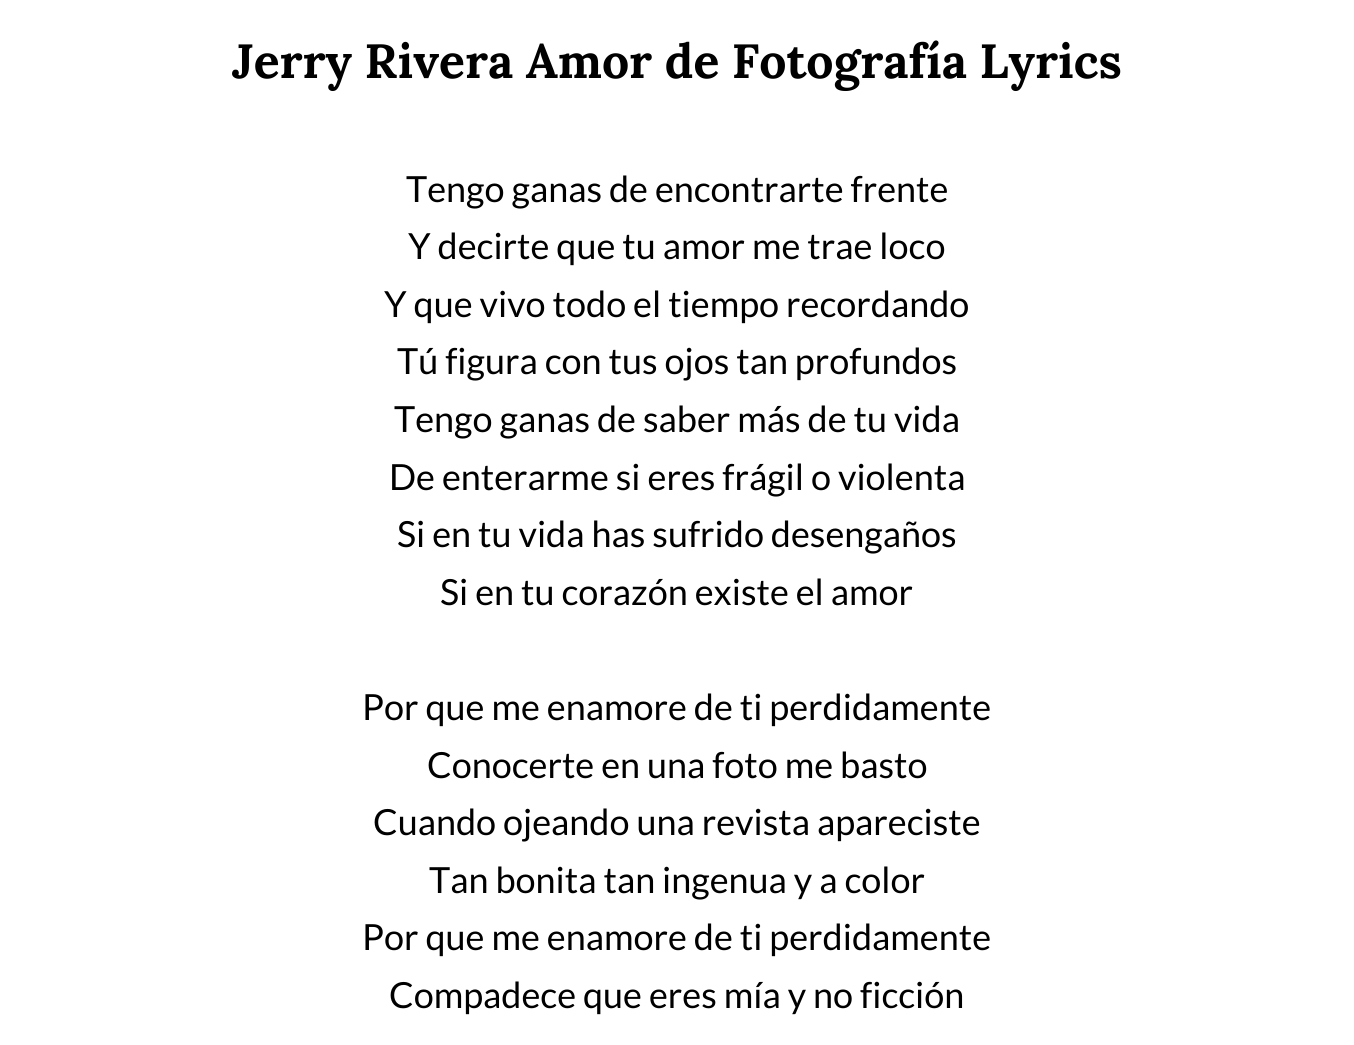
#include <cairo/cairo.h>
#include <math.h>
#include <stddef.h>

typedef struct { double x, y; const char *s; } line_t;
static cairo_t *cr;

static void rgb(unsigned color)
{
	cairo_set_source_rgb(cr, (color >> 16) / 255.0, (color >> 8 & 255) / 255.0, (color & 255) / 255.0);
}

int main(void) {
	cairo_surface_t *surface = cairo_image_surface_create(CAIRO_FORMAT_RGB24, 1354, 1045);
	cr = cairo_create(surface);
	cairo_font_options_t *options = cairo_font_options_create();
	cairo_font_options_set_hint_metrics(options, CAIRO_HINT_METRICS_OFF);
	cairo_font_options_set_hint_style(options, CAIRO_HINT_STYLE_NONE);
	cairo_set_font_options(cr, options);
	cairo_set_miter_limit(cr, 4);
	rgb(0xffffff);
	cairo_paint(cr);
	cairo_select_font_face(cr, "Lora", CAIRO_FONT_SLANT_NORMAL, CAIRO_FONT_WEIGHT_BOLD);
	cairo_set_font_size(cr, 48);
	rgb(0x000000);
	cairo_move_to(cr, 232, 78);
	cairo_show_text(cr, "Jerry Rivera Amor de Fotografía Lyrics");
	cairo_select_font_face(cr, "Lato", CAIRO_FONT_SLANT_NORMAL, CAIRO_FONT_WEIGHT_NORMAL);
	cairo_set_font_size(cr, 36);
	{
		static const line_t items[] = {
			{406, 202, "Tengo ganas de encontrarte frente"},
			{408, 259, "Y decirte que tu amor me trae loco"},
			{384, 317, "Y que vivo todo el tiempo recordando"},
			{397, 374, "Tú figura con tus ojos tan profundos"},
			{394, 432, "Tengo ganas de saber más de tu vida"},
			{389, 490, "De enterarme si eres frágil o violenta"},
			{397, 547, "Si en tu vida has sufrido desengaños"},
			{440, 605, "Si en tu corazón existe el amor"},
			{362, 720, "Por que me enamore de ti perdidamente"},
			{427, 778, "Conocerte en una foto me basto"},
			{373, 835, "Cuando ojeando una revista apareciste"},
			{429, 893, "Tan bonita tan ingenua y a color"},
			{362, 950, "Por que me enamore de ti perdidamente"},
			{389, 1008, "Compadece que eres mía y no ficción"},
		};
		for (size_t i = 0; i < sizeof items / sizeof *items; i++) {
			cairo_move_to(cr, items[i].x, items[i].y);
			cairo_show_text(cr, items[i].s);
		}
	}
	cairo_surface_write_to_png(surface, "page.png");
	cairo_font_options_destroy(options);
	cairo_destroy(cr);
	cairo_surface_destroy(surface);
	return 0;
}
